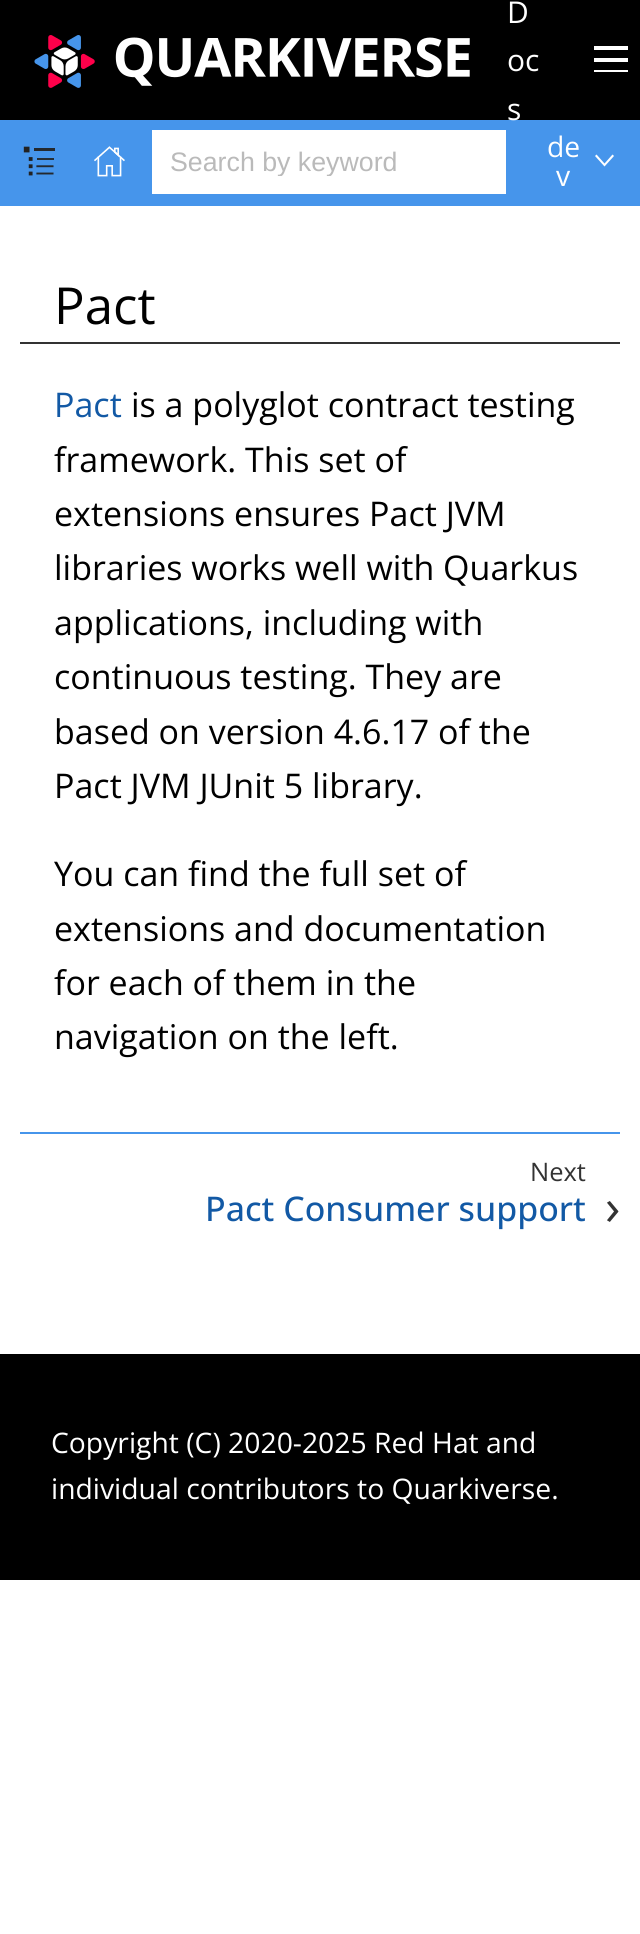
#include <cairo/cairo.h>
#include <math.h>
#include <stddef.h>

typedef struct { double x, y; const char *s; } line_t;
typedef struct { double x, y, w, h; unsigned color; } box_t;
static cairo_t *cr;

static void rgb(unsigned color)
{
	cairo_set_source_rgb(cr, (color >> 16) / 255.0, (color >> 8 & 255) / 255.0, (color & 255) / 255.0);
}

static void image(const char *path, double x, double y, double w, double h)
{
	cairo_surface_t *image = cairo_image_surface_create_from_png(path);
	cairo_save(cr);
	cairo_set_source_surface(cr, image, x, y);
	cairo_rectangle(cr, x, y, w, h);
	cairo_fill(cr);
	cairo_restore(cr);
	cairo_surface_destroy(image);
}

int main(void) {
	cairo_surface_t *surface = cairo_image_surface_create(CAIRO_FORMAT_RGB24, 640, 1934);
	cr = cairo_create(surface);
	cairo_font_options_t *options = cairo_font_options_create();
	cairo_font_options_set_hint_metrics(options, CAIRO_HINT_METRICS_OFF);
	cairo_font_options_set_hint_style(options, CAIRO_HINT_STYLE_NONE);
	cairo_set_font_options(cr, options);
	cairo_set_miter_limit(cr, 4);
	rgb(0xffffff);
	cairo_paint(cr);
	rgb(0x000000);
	cairo_rectangle(cr, 0, 0, 640, 120);
	cairo_fill(cr);
	image("img/1.png", 34, 35, 436, 53);
	{
		static const box_t items[] = {
			{594, 46, 34, 4, 0xffffff},
			{594, 58, 34, 4, 0xffffff},
			{594, 70, 34, 2, 0xffffff},
			{0, 120, 640, 86, 0x4695eb},
		};
		for (size_t i = 0; i < sizeof items / sizeof *items; i++) {
			rgb(items[i].color);
			cairo_rectangle(cr, items[i].x, items[i].y, items[i].w, items[i].h);
			cairo_fill(cr);
		}
	}
	image("img/2.png", 23, 146, 32, 30);
	image("img/3.png", 94, 146, 31, 31);
	rgb(0xffffff);
	cairo_rectangle(cr, 152, 130, 354, 64);
	cairo_fill(cr);
	cairo_new_path(cr);
	cairo_move_to(cr, 596.5, 154.5);
	cairo_line_to(cr, 595, 156);
	cairo_line_to(cr, 604.5, 166.5);
	cairo_line_to(cr, 614, 156);
	cairo_line_to(cr, 612.5, 154.5);
	cairo_line_to(cr, 604.5, 163.5);
	cairo_close_path(cr);
	cairo_fill(cr);
	{
		static const box_t items[] = {
			{20, 342, 600, 2, 0x333333},
			{20, 1132, 600, 2, 0x4695eb},
			{0, 1354, 640, 226, 0x000000},
		};
		for (size_t i = 0; i < sizeof items / sizeof *items; i++) {
			rgb(items[i].color);
			cairo_rectangle(cr, items[i].x, items[i].y, items[i].w, items[i].h);
			cairo_fill(cr);
		}
	}
	cairo_select_font_face(cr, "Open Sans", CAIRO_FONT_SLANT_NORMAL, CAIRO_FONT_WEIGHT_NORMAL);
	cairo_set_font_size(cr, 30);
	rgb(0xffffff);
	{
		static const line_t items[] = {
			{507, 23, "D"},
			{507, 71, "oc"},
			{507, 120, "s"},
		};
		for (size_t i = 0; i < sizeof items / sizeof *items; i++) {
			cairo_move_to(cr, items[i].x, items[i].y);
			cairo_show_text(cr, items[i].s);
		}
	}
	cairo_save(cr);
	cairo_rectangle(cr, 170, 146, 292, 30);
	cairo_clip(cr);
	cairo_select_font_face(cr, "Liberation Sans", CAIRO_FONT_SLANT_NORMAL, CAIRO_FONT_WEIGHT_NORMAL);
	cairo_set_font_size(cr, 26.75);
	rgb(0xbababa);
	cairo_move_to(cr, 170, 171);
	cairo_show_text(cr, "Search by keyword");
	cairo_restore(cr);
	cairo_set_font_size(cr, 28.3);
	cairo_move_to(cr, 547, 157);
	cairo_show_text(cr, "de");
	cairo_move_to(cr, 556, 186);
	cairo_show_text(cr, "v");
	cairo_set_font_size(cr, 51);
	rgb(0x000000);
	cairo_move_to(cr, 54, 324);
	cairo_show_text(cr, "Pact");
	cairo_set_font_size(cr, 34);
	rgb(0x1259a5);
	cairo_move_to(cr, 54, 417);
	cairo_show_text(cr, "Pact");
	rgb(0x000000);
	{
		static const line_t items[] = {
			{131, 417, "is a polyglot contract testing"},
			{54, 472, "framework. This set of"},
			{54, 526, "extensions ensures Pact JVM"},
			{54, 580, "libraries works well with Quarkus"},
			{54, 635, "applications, including with"},
			{54, 689, "continuous testing. They are"},
			{54, 744, "based on version 4.6.17 of the"},
			{54, 798, "Pact JVM JUnit 5 library."},
			{54, 886, "You can find the full set of"},
			{54, 941, "extensions and documentation"},
			{54, 995, "for each of them in the"},
			{54, 1049, "navigation on the left."},
		};
		for (size_t i = 0; i < sizeof items / sizeof *items; i++) {
			cairo_move_to(cr, items[i].x, items[i].y);
			cairo_show_text(cr, items[i].s);
		}
	}
	cairo_set_font_size(cr, 25.5);
	rgb(0x333333);
	cairo_move_to(cr, 530, 1181);
	cairo_show_text(cr, "Next");
	cairo_select_font_face(cr, "Open Sans Medium", CAIRO_FONT_SLANT_NORMAL, CAIRO_FONT_WEIGHT_NORMAL);
	cairo_set_font_size(cr, 34);
	rgb(0x1259a5);
	cairo_move_to(cr, 205, 1221);
	cairo_show_text(cr, "Pact Consumer support");
	cairo_select_font_face(cr, "Open Sans", CAIRO_FONT_SLANT_NORMAL, CAIRO_FONT_WEIGHT_NORMAL);
	cairo_set_font_size(cr, 51);
	rgb(0x333333);
	cairo_move_to(cr, 605, 1225);
	cairo_show_text(cr, "›");
	cairo_set_font_size(cr, 28.3);
	rgb(0xffffff);
	cairo_move_to(cr, 51, 1453);
	cairo_show_text(cr, "Copyright (C) 2020-2025 Red Hat and");
	cairo_move_to(cr, 51, 1499);
	cairo_show_text(cr, "individual contributors to Quarkiverse.");
	cairo_surface_write_to_png(surface, "page.png");
	cairo_font_options_destroy(options);
	cairo_destroy(cr);
	cairo_surface_destroy(surface);
	return 0;
}
